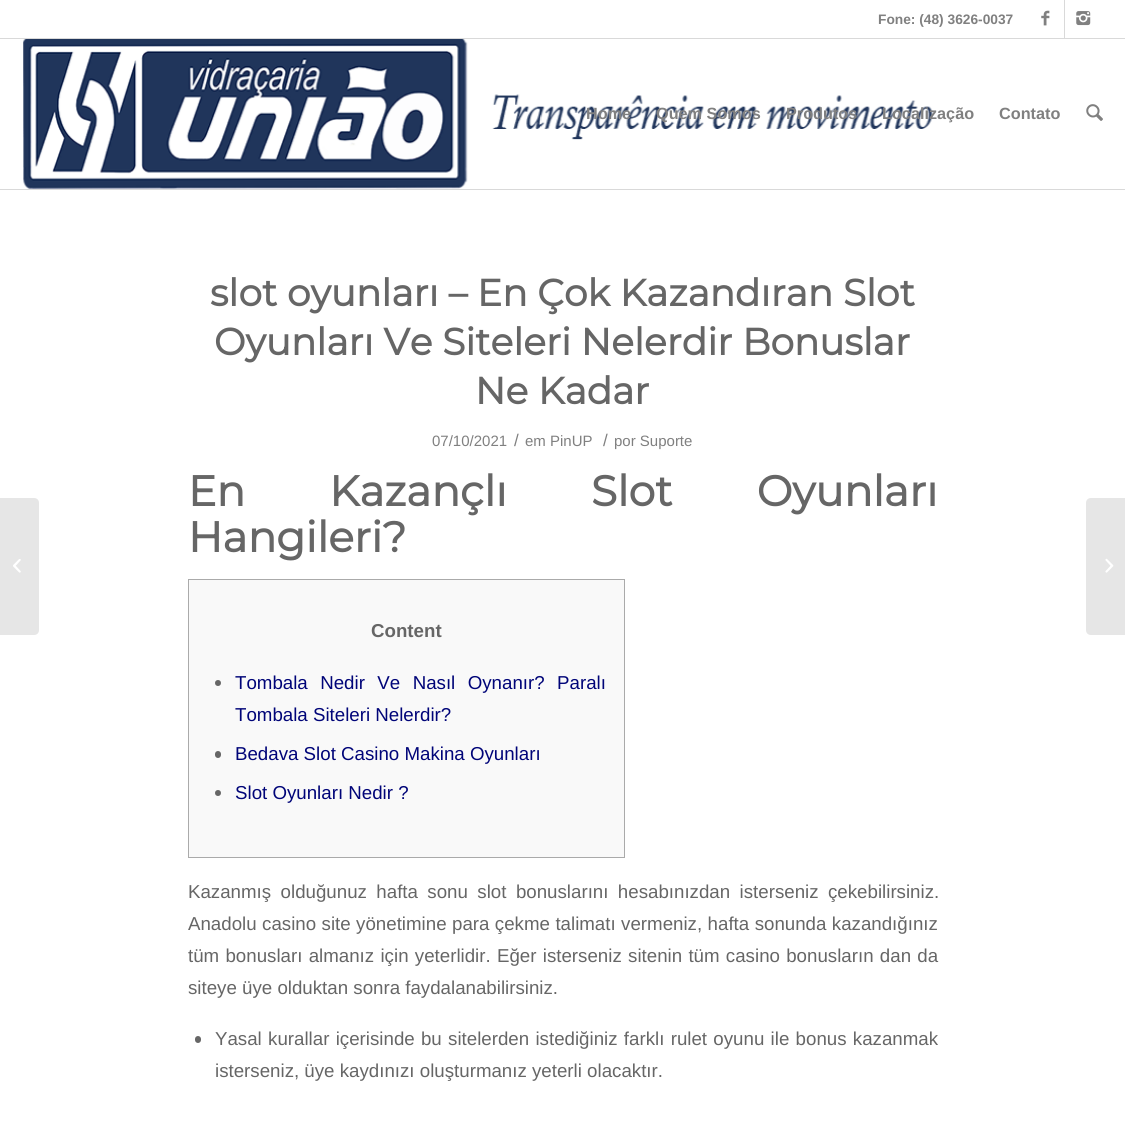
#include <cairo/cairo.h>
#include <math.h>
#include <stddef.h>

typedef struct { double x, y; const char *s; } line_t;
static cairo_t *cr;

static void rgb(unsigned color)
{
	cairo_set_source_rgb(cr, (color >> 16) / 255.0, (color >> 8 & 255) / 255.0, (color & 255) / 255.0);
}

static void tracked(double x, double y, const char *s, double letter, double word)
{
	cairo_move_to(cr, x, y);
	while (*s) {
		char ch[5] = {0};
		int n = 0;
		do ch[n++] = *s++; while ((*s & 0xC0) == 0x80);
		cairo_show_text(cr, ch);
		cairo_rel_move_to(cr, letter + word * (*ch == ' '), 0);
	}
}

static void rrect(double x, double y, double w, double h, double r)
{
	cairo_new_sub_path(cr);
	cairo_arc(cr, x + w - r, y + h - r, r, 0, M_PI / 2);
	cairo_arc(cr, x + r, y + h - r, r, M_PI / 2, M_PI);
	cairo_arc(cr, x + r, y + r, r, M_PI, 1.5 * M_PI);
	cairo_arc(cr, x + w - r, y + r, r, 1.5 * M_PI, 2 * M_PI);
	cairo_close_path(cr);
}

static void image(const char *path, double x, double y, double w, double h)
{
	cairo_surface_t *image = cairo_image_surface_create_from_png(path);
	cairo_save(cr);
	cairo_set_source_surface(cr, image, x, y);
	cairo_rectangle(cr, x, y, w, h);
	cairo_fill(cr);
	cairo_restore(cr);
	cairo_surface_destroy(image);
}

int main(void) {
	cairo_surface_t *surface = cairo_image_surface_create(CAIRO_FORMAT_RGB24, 1125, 1131);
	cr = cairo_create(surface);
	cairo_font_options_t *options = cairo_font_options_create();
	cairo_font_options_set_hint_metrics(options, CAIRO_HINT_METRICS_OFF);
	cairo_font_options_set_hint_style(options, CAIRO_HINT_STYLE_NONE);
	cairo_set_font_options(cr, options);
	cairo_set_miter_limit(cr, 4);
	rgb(0xffffff);
	cairo_paint(cr);
	rgb(0xd9d9d9);
	cairo_rectangle(cr, 0, 38, 1125, 1);
	cairo_fill(cr);
	cairo_rectangle(cr, 1064, 0, 1, 38);
	cairo_fill(cr);
	image("img/1.png", 1041, 10, 9, 16);
	image("img/2.png", 1076, 11, 15, 15);
	cairo_rectangle(cr, 0, 189, 1125, 1);
	cairo_fill(cr);
	image("img/3.png", 23, 39, 910, 150);
	image("img/4.png", 1086, 104, 17, 17);
	rgb(0xe6e6e6);
	cairo_new_path(cr);
	cairo_move_to(cr, 0, 498);
	cairo_line_to(cr, 34, 498);
	cairo_curve_to(cr, 37, 498, 39, 500, 39, 503);
	cairo_line_to(cr, 39, 630);
	cairo_curve_to(cr, 39, 633, 37, 635, 34, 635);
	cairo_line_to(cr, 0, 635);
	cairo_close_path(cr);
	cairo_fill(cr);
	image("img/5.png", 13, 559, 8, 14);
	rgb(0xf9f9f9);
	cairo_rectangle(cr, 188.5, 579.5, 436, 278);
	cairo_fill_preserve(cr);
	rgb(0xaaaaaa);
	cairo_set_line_width(cr, 1);
	cairo_stroke(cr);
	rgb(0x666666);
	cairo_arc(cr, 218, 683, 3, 0, 2 * M_PI);
	cairo_fill(cr);
	rrect(215, 751, 6, 7, 3);
	cairo_fill(cr);
	cairo_arc(cr, 218, 793, 3, 0, 2 * M_PI);
	cairo_fill(cr);
	rrect(195, 1036, 6, 7, 3);
	cairo_fill(cr);
	rgb(0xe6e6e6);
	cairo_new_path(cr);
	cairo_move_to(cr, 1091, 498);
	cairo_line_to(cr, 1125, 498);
	cairo_line_to(cr, 1125, 635);
	cairo_line_to(cr, 1091, 635);
	cairo_curve_to(cr, 1088, 635, 1086, 633, 1086, 630);
	cairo_line_to(cr, 1086, 503);
	cairo_curve_to(cr, 1086, 500, 1088, 498, 1091, 498);
	cairo_close_path(cr);
	cairo_fill(cr);
	image("img/6.png", 1105, 558, 9, 15);
	cairo_select_font_face(cr, "Liberation Sans", CAIRO_FONT_SLANT_NORMAL, CAIRO_FONT_WEIGHT_BOLD);
	cairo_set_font_size(cr, 13.75);
	rgb(0x808080);
	cairo_move_to(cr, 878, 24);
	cairo_show_text(cr, "Fone: (48) 3626-0037");
	cairo_set_font_size(cr, 16.25);
	{
		static const line_t items[] = {
			{586, 119, "Home"},
			{656, 119, "Quem Somos"},
			{786, 119, "Produtos"},
			{882, 119, "Localização"},
			{999, 119, "Contato"},
		};
		for (size_t i = 0; i < sizeof items / sizeof *items; i++) {
			cairo_move_to(cr, items[i].x, items[i].y);
			cairo_show_text(cr, items[i].s);
		}
	}
	cairo_select_font_face(cr, "Montserrat", CAIRO_FONT_SLANT_NORMAL, CAIRO_FONT_WEIGHT_BOLD);
	cairo_set_font_size(cr, 37.5);
	rgb(0x666666);
	{
		static const line_t items[] = {
			{210, 306, "slot oyunları – En Çok Kazandıran Slot"},
			{214, 355, "Oyunları Ve Siteleri Nelerdir Bonuslar"},
			{475, 404, "Ne Kadar"},
		};
		for (size_t i = 0; i < sizeof items / sizeof *items; i++) {
			cairo_move_to(cr, items[i].x, items[i].y);
			cairo_show_text(cr, items[i].s);
		}
	}
	cairo_select_font_face(cr, "Liberation Sans", CAIRO_FONT_SLANT_NORMAL, CAIRO_FONT_WEIGHT_NORMAL);
	cairo_set_font_size(cr, 15);
	rgb(0x808080);
	cairo_move_to(cr, 432, 446);
	cairo_show_text(cr, "07/10/2021");
	cairo_set_font_size(cr, 17);
	cairo_move_to(cr, 514, 446);
	cairo_show_text(cr, "/");
	cairo_set_font_size(cr, 15);
	cairo_move_to(cr, 525, 446);
	cairo_show_text(cr, "em PinUP");
	cairo_set_font_size(cr, 17);
	cairo_move_to(cr, 603, 446);
	cairo_show_text(cr, "/");
	cairo_set_font_size(cr, 15);
	cairo_move_to(cr, 614, 446);
	cairo_show_text(cr, "por Suporte");
	cairo_select_font_face(cr, "Montserrat", CAIRO_FONT_SLANT_NORMAL, CAIRO_FONT_WEIGHT_BOLD);
	cairo_set_font_size(cr, 42.5);
	rgb(0x666666);
	tracked(188, 506, "En Kazançlı Slot Oyunları", 0, 73);
	cairo_move_to(cr, 188, 552);
	cairo_show_text(cr, "Hangileri?");
	cairo_select_font_face(cr, "Liberation Sans", CAIRO_FONT_SLANT_NORMAL, CAIRO_FONT_WEIGHT_BOLD);
	cairo_set_font_size(cr, 18.7);
	cairo_move_to(cr, 371, 637);
	cairo_show_text(cr, "Content");
	cairo_select_font_face(cr, "Liberation Sans", CAIRO_FONT_SLANT_NORMAL, CAIRO_FONT_WEIGHT_NORMAL);
	rgb(0x000478);
	tracked(235, 689, "Tombala Nedir Ve Nasıl Oynanır? Paralı", 0, 7.25);
	{
		static const line_t items[] = {
			{235, 721, "Tombala Siteleri Nelerdir?"},
			{235, 760, "Bedava Slot Casino Makina Oyunları"},
			{235, 799, "Slot Oyunları Nedir ?"},
		};
		for (size_t i = 0; i < sizeof items / sizeof *items; i++) {
			cairo_move_to(cr, items[i].x, items[i].y);
			cairo_show_text(cr, items[i].s);
		}
	}
	rgb(0x666666);
	tracked(188, 898, "Kazanmış olduğunuz hafta sonu slot bonuslarını hesabınızdan isterseniz çekebilirsiniz.", 0, 4.25);
	tracked(188, 930, "Anadolu casino site yönetimine para çekme talimatı vermeniz, hafta sonunda kazandığınız", 0, 0.25);
	tracked(188, 962, "tüm bonusları almanız için yeterlidir. Eğer isterseniz sitenin tüm casino bonusların dan da", 0, 1.1);
	cairo_move_to(cr, 188, 994);
	cairo_show_text(cr, "siteye üye olduktan sonra faydalanabilirsiniz.");
	tracked(215, 1045, "Yasal kurallar içerisinde bu sitelerden istediğiniz farklı rulet oyunu ile bonus kazanmak", 0, 1.1);
	cairo_move_to(cr, 215, 1077);
	cairo_show_text(cr, "isterseniz, üye kaydınızı oluşturmanız yeterli olacaktır.");
	cairo_surface_write_to_png(surface, "page.png");
	cairo_font_options_destroy(options);
	cairo_destroy(cr);
	cairo_surface_destroy(surface);
	return 0;
}
